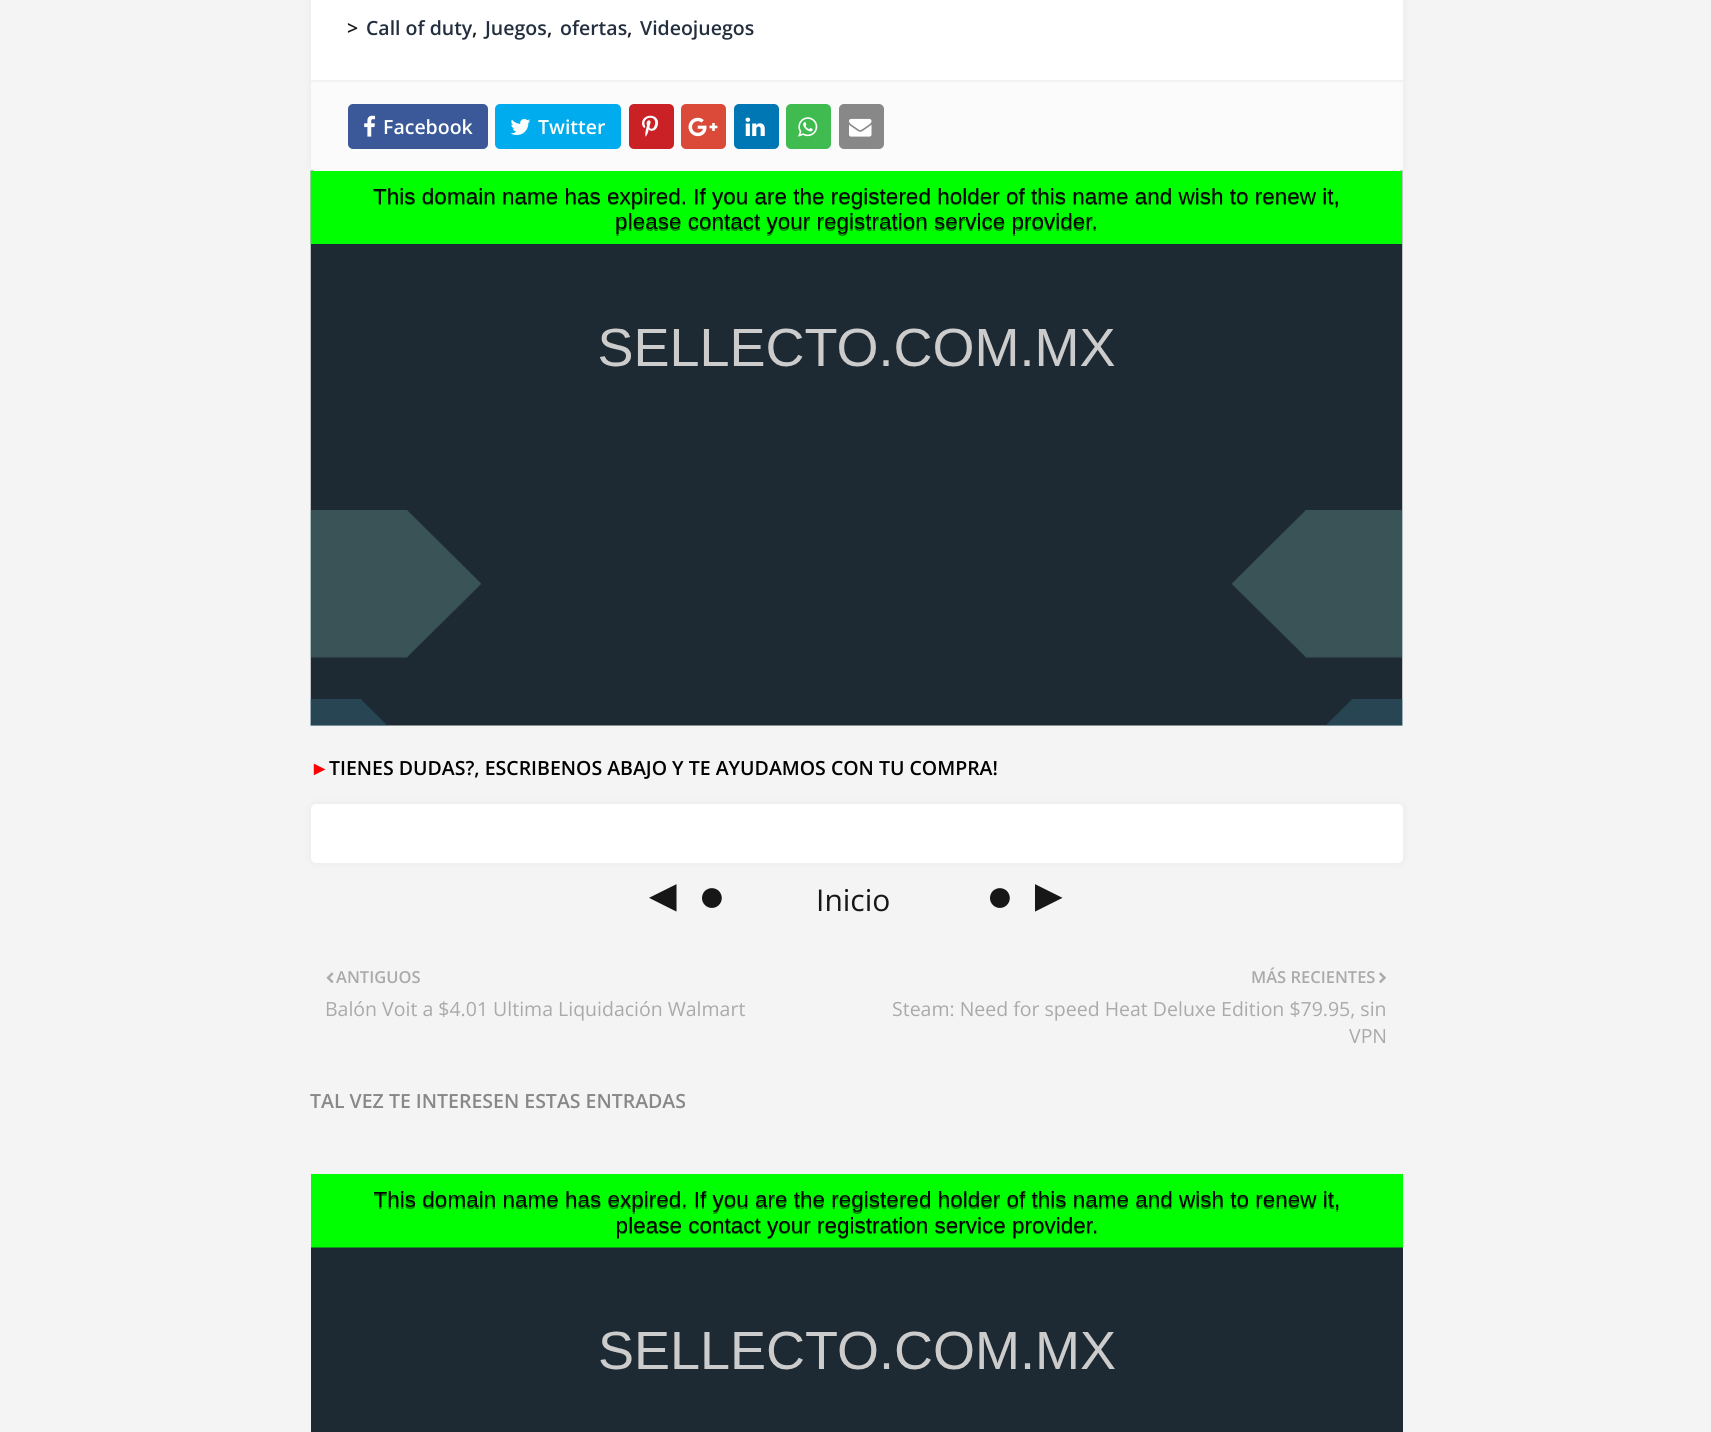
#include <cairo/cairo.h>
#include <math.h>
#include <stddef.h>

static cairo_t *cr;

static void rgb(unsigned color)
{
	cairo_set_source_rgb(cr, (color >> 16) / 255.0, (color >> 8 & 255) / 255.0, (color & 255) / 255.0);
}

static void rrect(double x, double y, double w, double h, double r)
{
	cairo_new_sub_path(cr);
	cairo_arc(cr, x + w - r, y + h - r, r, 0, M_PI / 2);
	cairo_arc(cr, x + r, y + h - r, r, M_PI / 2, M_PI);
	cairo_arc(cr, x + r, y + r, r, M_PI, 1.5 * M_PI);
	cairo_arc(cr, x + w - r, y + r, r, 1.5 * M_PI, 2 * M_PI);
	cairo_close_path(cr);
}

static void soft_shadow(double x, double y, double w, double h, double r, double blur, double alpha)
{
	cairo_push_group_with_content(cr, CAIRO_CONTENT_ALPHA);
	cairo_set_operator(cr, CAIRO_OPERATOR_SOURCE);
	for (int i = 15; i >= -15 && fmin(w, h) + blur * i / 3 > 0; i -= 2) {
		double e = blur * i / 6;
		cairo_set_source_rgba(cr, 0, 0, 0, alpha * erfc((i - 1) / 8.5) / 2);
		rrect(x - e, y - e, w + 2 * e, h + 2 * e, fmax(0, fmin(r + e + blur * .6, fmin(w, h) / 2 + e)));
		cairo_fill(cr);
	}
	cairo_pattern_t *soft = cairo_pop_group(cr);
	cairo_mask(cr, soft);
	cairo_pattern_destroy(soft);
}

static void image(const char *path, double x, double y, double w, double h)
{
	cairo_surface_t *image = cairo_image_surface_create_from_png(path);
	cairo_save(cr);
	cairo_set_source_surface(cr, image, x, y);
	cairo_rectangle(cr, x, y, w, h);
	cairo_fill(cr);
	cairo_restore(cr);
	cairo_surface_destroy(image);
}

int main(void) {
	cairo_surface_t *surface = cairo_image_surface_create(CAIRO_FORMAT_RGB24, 1711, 1432);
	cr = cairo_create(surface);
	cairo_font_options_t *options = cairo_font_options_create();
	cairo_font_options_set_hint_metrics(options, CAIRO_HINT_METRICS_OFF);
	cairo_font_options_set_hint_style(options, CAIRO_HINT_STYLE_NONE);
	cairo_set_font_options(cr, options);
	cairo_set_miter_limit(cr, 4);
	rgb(0xf4f4f4);
	cairo_paint(cr);
	rgb(0x000000);
	soft_shadow(311, -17, 1092, 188, 5, 4, 0.05);
	rgb(0xffffff);
	rrect(311, -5, 1092, 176, 5);
	cairo_fill(cr);
	image("img/8.png", 310, 170, 1093, 556);
	rgb(0xfbfbfb);
	cairo_new_path(cr);
	cairo_move_to(cr, 311, 80);
	cairo_line_to(cr, 1403, 80);
	cairo_line_to(cr, 1403, 166);
	cairo_curve_to(cr, 1403, 169, 1401, 171, 1398, 171);
	cairo_line_to(cr, 316, 171);
	cairo_curve_to(cr, 313, 171, 311, 169, 311, 166);
	cairo_close_path(cr);
	cairo_fill(cr);
	rgb(0xf2f2f2);
	cairo_rectangle(cr, 311, 80, 1092, 2);
	cairo_fill(cr);
	rgb(0x3b5999);
	rrect(348, 104, 140, 45, 5);
	cairo_fill(cr);
	image("img/1.png", 364, 115, 12, 22);
	rgb(0x00acee);
	rrect(495, 104, 126, 45, 5);
	cairo_fill(cr);
	image("img/2.png", 510, 118, 21, 17);
	rgb(0xca2127);
	rrect(629, 104, 45, 45, 5);
	cairo_fill(cr);
	image("img/3.png", 642, 115, 17, 22);
	rgb(0xdb4a39);
	rrect(681, 104, 45, 45, 5);
	cairo_fill(cr);
	image("img/4.png", 688, 117, 30, 20);
	rgb(0x0077b5);
	rrect(734, 104, 45, 45, 5);
	cairo_fill(cr);
	image("img/5.png", 745, 117, 20, 19);
	rgb(0x3fbb50);
	rrect(786, 104, 45, 45, 5);
	cairo_fill(cr);
	image("img/6.png", 798, 117, 20, 20);
	rgb(0x888888);
	rrect(839, 104, 45, 45, 5);
	cairo_fill(cr);
	image("img/7.png", 849, 118, 23, 19);
	rgb(0x000000);
	soft_shadow(311, 804, 1092, 59, 5, 4, 0.05);
	rgb(0xffffff);
	rrect(311, 804, 1092, 59, 5);
	cairo_fill(cr);
	image("img/9.png", 326, 972, 8, 11);
	image("img/10.png", 1379, 972, 7, 12);
	image("img/11.png", 311, 1174, 1092, 258);
	cairo_select_font_face(cr, "Open Sans SemiBold", CAIRO_FONT_SLANT_NORMAL, CAIRO_FONT_WEIGHT_NORMAL);
	cairo_set_font_size(cr, 19.5);
	rgb(0x171717);
	cairo_move_to(cr, 347, 35);
	cairo_show_text(cr, ">");
	rgb(0x232f3e);
	cairo_move_to(cr, 366, 35);
	cairo_show_text(cr, "Call of duty");
	rgb(0x171717);
	cairo_move_to(cr, 472, 35);
	cairo_show_text(cr, ",");
	rgb(0x232f3e);
	cairo_move_to(cr, 485, 35);
	cairo_show_text(cr, "Juegos");
	rgb(0x171717);
	cairo_move_to(cr, 547, 35);
	cairo_show_text(cr, ",");
	rgb(0x232f3e);
	cairo_move_to(cr, 560, 35);
	cairo_show_text(cr, "ofertas");
	rgb(0x171717);
	cairo_move_to(cr, 627, 35);
	cairo_show_text(cr, ",");
	rgb(0x232f3e);
	cairo_move_to(cr, 640, 35);
	cairo_show_text(cr, "Videojuegos");
	rgb(0xffffff);
	cairo_move_to(cr, 383, 134);
	cairo_show_text(cr, "Facebook");
	cairo_move_to(cr, 538, 134);
	cairo_show_text(cr, "Twitter");
	cairo_select_font_face(cr, "Liberation Sans", CAIRO_FONT_SLANT_NORMAL, CAIRO_FONT_WEIGHT_BOLD);
	rgb(0xff0000);
	cairo_move_to(cr, 310, 775);
	cairo_show_text(cr, "►");
	cairo_select_font_face(cr, "Open Sans SemiBold", CAIRO_FONT_SLANT_NORMAL, CAIRO_FONT_WEIGHT_NORMAL);
	rgb(0x000000);
	cairo_move_to(cr, 329, 775);
	cairo_show_text(cr, "TIENES DUDAS?, ESCRIBENOS ABAJO Y TE AYUDAMOS CON TU COMPRA!");
	cairo_select_font_face(cr, "Liberation Sans", CAIRO_FONT_SLANT_NORMAL, CAIRO_FONT_WEIGHT_NORMAL);
	cairo_set_font_size(cr, 46);
	rgb(0x171717);
	cairo_move_to(cr, 640, 911);
	cairo_show_text(cr, "◄");
	cairo_move_to(cr, 698, 911);
	cairo_show_text(cr, "●");
	cairo_select_font_face(cr, "Open Sans", CAIRO_FONT_SLANT_NORMAL, CAIRO_FONT_WEIGHT_NORMAL);
	cairo_set_font_size(cr, 30);
	cairo_move_to(cr, 816, 911);
	cairo_show_text(cr, "Inicio");
	cairo_select_font_face(cr, "Liberation Sans", CAIRO_FONT_SLANT_NORMAL, CAIRO_FONT_WEIGHT_NORMAL);
	cairo_set_font_size(cr, 46);
	cairo_move_to(cr, 986, 911);
	cairo_show_text(cr, "●");
	cairo_move_to(cr, 1026, 911);
	cairo_show_text(cr, "►");
	cairo_select_font_face(cr, "Open Sans SemiBold", CAIRO_FONT_SLANT_NORMAL, CAIRO_FONT_WEIGHT_NORMAL);
	cairo_set_font_size(cr, 16.5);
	rgb(0xaaaaaa);
	cairo_move_to(cr, 336, 983);
	cairo_show_text(cr, "ANTIGUOS");
	cairo_select_font_face(cr, "Open Sans", CAIRO_FONT_SLANT_NORMAL, CAIRO_FONT_WEIGHT_NORMAL);
	cairo_set_font_size(cr, 19.5);
	cairo_move_to(cr, 325, 1016);
	cairo_show_text(cr, "Balón Voit a $4.01 Ultima Liquidación Walmart");
	cairo_select_font_face(cr, "Open Sans SemiBold", CAIRO_FONT_SLANT_NORMAL, CAIRO_FONT_WEIGHT_NORMAL);
	cairo_set_font_size(cr, 16.5);
	cairo_move_to(cr, 1251, 983);
	cairo_show_text(cr, "MÁS RECIENTES");
	cairo_select_font_face(cr, "Open Sans", CAIRO_FONT_SLANT_NORMAL, CAIRO_FONT_WEIGHT_NORMAL);
	cairo_set_font_size(cr, 19.5);
	cairo_move_to(cr, 892, 1016);
	cairo_show_text(cr, "Steam: Need for speed Heat Deluxe Edition $79.95, sin");
	cairo_move_to(cr, 1349, 1043);
	cairo_show_text(cr, "VPN");
	cairo_select_font_face(cr, "Open Sans SemiBold", CAIRO_FONT_SLANT_NORMAL, CAIRO_FONT_WEIGHT_NORMAL);
	rgb(0x888888);
	cairo_move_to(cr, 310, 1108);
	cairo_show_text(cr, "TAL VEZ TE INTERESEN ESTAS ENTRADAS");
	cairo_surface_write_to_png(surface, "page.png");
	cairo_font_options_destroy(options);
	cairo_destroy(cr);
	cairo_surface_destroy(surface);
	return 0;
}
